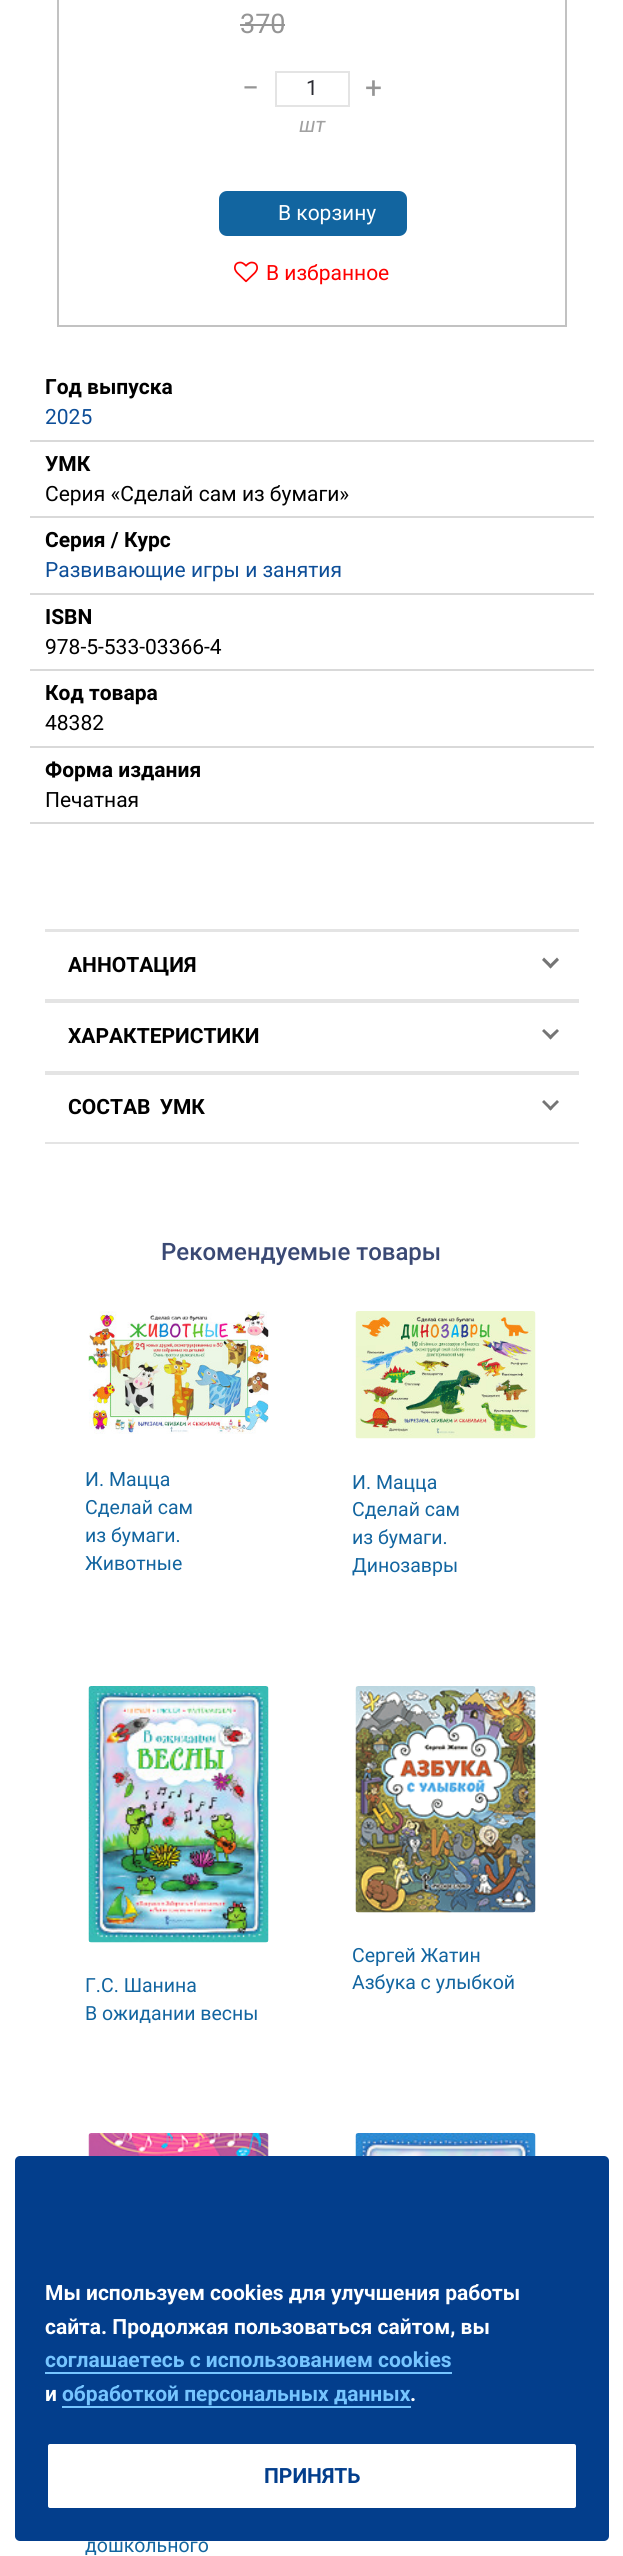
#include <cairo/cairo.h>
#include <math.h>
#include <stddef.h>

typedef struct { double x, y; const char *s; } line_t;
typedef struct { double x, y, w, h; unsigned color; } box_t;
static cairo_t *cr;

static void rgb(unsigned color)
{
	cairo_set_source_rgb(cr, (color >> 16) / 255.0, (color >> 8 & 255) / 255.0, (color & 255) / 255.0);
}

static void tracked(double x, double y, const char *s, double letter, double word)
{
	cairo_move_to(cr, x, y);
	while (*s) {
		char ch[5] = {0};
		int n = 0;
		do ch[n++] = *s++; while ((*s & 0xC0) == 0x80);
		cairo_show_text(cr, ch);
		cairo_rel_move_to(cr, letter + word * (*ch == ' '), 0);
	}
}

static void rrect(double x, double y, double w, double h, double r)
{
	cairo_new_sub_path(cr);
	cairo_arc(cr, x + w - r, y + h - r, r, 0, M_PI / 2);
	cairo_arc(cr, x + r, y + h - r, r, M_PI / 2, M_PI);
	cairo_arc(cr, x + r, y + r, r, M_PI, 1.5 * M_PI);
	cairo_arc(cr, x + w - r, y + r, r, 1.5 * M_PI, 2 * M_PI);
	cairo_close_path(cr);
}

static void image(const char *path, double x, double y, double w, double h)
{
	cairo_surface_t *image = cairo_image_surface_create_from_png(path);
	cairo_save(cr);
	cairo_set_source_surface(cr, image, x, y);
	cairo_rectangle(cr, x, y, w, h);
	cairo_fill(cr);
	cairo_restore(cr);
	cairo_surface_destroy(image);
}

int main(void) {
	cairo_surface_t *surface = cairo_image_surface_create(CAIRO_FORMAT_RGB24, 623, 2556);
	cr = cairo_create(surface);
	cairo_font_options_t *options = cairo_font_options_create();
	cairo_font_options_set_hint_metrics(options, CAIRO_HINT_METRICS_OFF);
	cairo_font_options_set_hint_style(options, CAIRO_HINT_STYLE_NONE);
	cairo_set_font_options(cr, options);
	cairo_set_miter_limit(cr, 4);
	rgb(0xffffff);
	cairo_paint(cr);
	cairo_rectangle(cr, 58, -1, 508, 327);
	rgb(0xc2c2c2);
	cairo_stroke(cr);
	rgb(0x959595);
	cairo_rectangle(cr, 240, 24, 45, 2);
	cairo_fill(cr);
	cairo_rectangle(cr, 276, 72, 73, 34);
	rgb(0xe4e4e4);
	cairo_stroke(cr);
	rgb(0x1265a0);
	rrect(219, 191, 188, 45, 8);
	cairo_fill(cr);
	image("img/1.png", 234, 261, 24, 22);
	{
		static const box_t items[] = {
			{30, 440, 564, 2, 0xd9d9d9},
			{30, 516, 564, 2, 0xd9d9d9},
			{30, 593, 564, 2, 0xd9d9d9},
			{30, 669, 564, 2, 0xd9d9d9},
			{30, 746, 564, 2, 0xd9d9d9},
			{30, 822, 564, 2, 0xd9d9d9},
			{45, 929, 534, 3, 0xe4e4e4},
			{45, 999, 534, 4, 0xe4e4e4},
		};
		for (size_t i = 0; i < sizeof items / sizeof *items; i++) {
			rgb(items[i].color);
			cairo_rectangle(cr, items[i].x, items[i].y, items[i].w, items[i].h);
			cairo_fill(cr);
		}
	}
	rgb(0x757575);
	cairo_new_path(cr);
	cairo_move_to(cr, 548.5, 966);
	cairo_line_to(cr, 557, 957.5);
	cairo_line_to(cr, 559, 960);
	cairo_line_to(cr, 550.5, 968.5);
	cairo_close_path(cr);
	cairo_fill(cr);
	cairo_new_path(cr);
	cairo_move_to(cr, 542, 960);
	cairo_line_to(cr, 544, 957.5);
	cairo_line_to(cr, 552.5, 966);
	cairo_line_to(cr, 550.5, 968.5);
	cairo_close_path(cr);
	cairo_fill(cr);
	rgb(0xe4e4e4);
	cairo_rectangle(cr, 45, 1071, 534, 4);
	cairo_fill(cr);
	rgb(0x757575);
	cairo_new_path(cr);
	cairo_move_to(cr, 548.5, 1037);
	cairo_line_to(cr, 557, 1029);
	cairo_line_to(cr, 559, 1031);
	cairo_line_to(cr, 550.5, 1039.5);
	cairo_close_path(cr);
	cairo_fill(cr);
	cairo_new_path(cr);
	cairo_move_to(cr, 542, 1031);
	cairo_line_to(cr, 544, 1029);
	cairo_line_to(cr, 552.5, 1037);
	cairo_line_to(cr, 550.5, 1039.5);
	cairo_close_path(cr);
	cairo_fill(cr);
	rgb(0xe4e4e4);
	cairo_rectangle(cr, 45, 1142, 534, 2);
	cairo_fill(cr);
	rgb(0x757575);
	cairo_new_path(cr);
	cairo_move_to(cr, 548.5, 1108.5);
	cairo_line_to(cr, 557, 1100);
	cairo_line_to(cr, 559, 1102);
	cairo_line_to(cr, 550.5, 1110.5);
	cairo_close_path(cr);
	cairo_fill(cr);
	cairo_new_path(cr);
	cairo_move_to(cr, 542, 1102);
	cairo_line_to(cr, 544, 1100);
	cairo_line_to(cr, 552.5, 1108.5);
	cairo_line_to(cr, 550.5, 1110.5);
	cairo_close_path(cr);
	cairo_fill(cr);
	image("img/2.png", 88, 1311, 181, 123);
	image("img/3.png", 355, 1311, 181, 128);
	image("img/4.png", 355, 1686, 181, 227);
	image("img/5.png", 88, 1686, 181, 257);
	image("img/6.png", 355, 2133, 181, 23);
	image("img/7.png", 88, 2133, 181, 23);
	rgb(0x033e8c);
	rrect(15, 2156, 594, 385, 5);
	cairo_fill(cr);
	rgb(0x76c5ff);
	cairo_rectangle(cr, 45, 2372, 407, 2);
	cairo_fill(cr);
	cairo_rectangle(cr, 62, 2406, 349, 2);
	cairo_fill(cr);
	rgb(0xffffff);
	rrect(46.5, 2442.5, 531, 67, 3.5);
	cairo_fill_preserve(cr);
	rgb(0x033e8c);
	cairo_set_line_width(cr, 3);
	cairo_stroke(cr);
	cairo_select_font_face(cr, "Roboto", CAIRO_FONT_SLANT_NORMAL, CAIRO_FONT_WEIGHT_NORMAL);
	cairo_set_font_size(cr, 27);
	rgb(0x959595);
	cairo_move_to(cr, 240, 33);
	cairo_show_text(cr, "370");
	cairo_set_font_size(cr, 30);
	cairo_move_to(cr, 242, 98);
	cairo_show_text(cr, "−");
	cairo_set_font_size(cr, 21);
	rgb(0x2a2b32);
	cairo_move_to(cr, 306, 95);
	cairo_show_text(cr, "1");
	cairo_set_font_size(cr, 30);
	rgb(0x959595);
	cairo_move_to(cr, 365, 98);
	cairo_show_text(cr, "+");
	cairo_select_font_face(cr, "Roboto", CAIRO_FONT_SLANT_ITALIC, CAIRO_FONT_WEIGHT_NORMAL);
	cairo_set_font_size(cr, 21);
	rgb(0xa1a1a1);
	cairo_move_to(cr, 299, 132);
	cairo_show_text(cr, "шт");
	cairo_select_font_face(cr, "Roboto", CAIRO_FONT_SLANT_NORMAL, CAIRO_FONT_WEIGHT_NORMAL);
	rgb(0xffffff);
	cairo_move_to(cr, 278, 220);
	cairo_show_text(cr, "В корзину");
	rgb(0xff0000);
	cairo_move_to(cr, 266, 280);
	cairo_show_text(cr, "В избранное");
	cairo_select_font_face(cr, "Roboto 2", CAIRO_FONT_SLANT_NORMAL, CAIRO_FONT_WEIGHT_BOLD);
	rgb(0x000000);
	cairo_move_to(cr, 45, 394);
	cairo_show_text(cr, "Год выпуска");
	cairo_select_font_face(cr, "Roboto", CAIRO_FONT_SLANT_NORMAL, CAIRO_FONT_WEIGHT_NORMAL);
	rgb(0x0d4e98);
	cairo_move_to(cr, 45, 424);
	cairo_show_text(cr, "2025");
	cairo_select_font_face(cr, "Roboto 2", CAIRO_FONT_SLANT_NORMAL, CAIRO_FONT_WEIGHT_BOLD);
	rgb(0x000000);
	cairo_move_to(cr, 45, 471);
	cairo_show_text(cr, "УМК");
	cairo_select_font_face(cr, "Roboto", CAIRO_FONT_SLANT_NORMAL, CAIRO_FONT_WEIGHT_NORMAL);
	cairo_move_to(cr, 45, 501);
	cairo_show_text(cr, "Серия «Сделай сам из бумаги»");
	cairo_select_font_face(cr, "Roboto 2", CAIRO_FONT_SLANT_NORMAL, CAIRO_FONT_WEIGHT_BOLD);
	cairo_move_to(cr, 45, 547);
	cairo_show_text(cr, "Серия / Курс");
	cairo_select_font_face(cr, "Roboto", CAIRO_FONT_SLANT_NORMAL, CAIRO_FONT_WEIGHT_NORMAL);
	rgb(0x0d4e98);
	cairo_move_to(cr, 45, 577);
	cairo_show_text(cr, "Развивающие игры и занятия");
	cairo_select_font_face(cr, "Roboto 2", CAIRO_FONT_SLANT_NORMAL, CAIRO_FONT_WEIGHT_BOLD);
	rgb(0x000000);
	cairo_move_to(cr, 45, 624);
	cairo_show_text(cr, "ISBN");
	cairo_select_font_face(cr, "Roboto", CAIRO_FONT_SLANT_NORMAL, CAIRO_FONT_WEIGHT_NORMAL);
	cairo_move_to(cr, 45, 654);
	cairo_show_text(cr, "978-5-533-03366-4");
	cairo_select_font_face(cr, "Roboto 2", CAIRO_FONT_SLANT_NORMAL, CAIRO_FONT_WEIGHT_BOLD);
	cairo_move_to(cr, 45, 700);
	cairo_show_text(cr, "Код товара");
	cairo_select_font_face(cr, "Roboto", CAIRO_FONT_SLANT_NORMAL, CAIRO_FONT_WEIGHT_NORMAL);
	cairo_move_to(cr, 45, 730);
	cairo_show_text(cr, "48382");
	cairo_select_font_face(cr, "Roboto 2", CAIRO_FONT_SLANT_NORMAL, CAIRO_FONT_WEIGHT_BOLD);
	cairo_move_to(cr, 45, 777);
	cairo_show_text(cr, "Форма издания");
	cairo_select_font_face(cr, "Roboto", CAIRO_FONT_SLANT_NORMAL, CAIRO_FONT_WEIGHT_NORMAL);
	cairo_move_to(cr, 45, 807);
	cairo_show_text(cr, "Печатная");
	cairo_select_font_face(cr, "Roboto", CAIRO_FONT_SLANT_NORMAL, CAIRO_FONT_WEIGHT_BOLD);
	cairo_move_to(cr, 68, 972);
	cairo_show_text(cr, "АННОТАЦИЯ");
	cairo_move_to(cr, 68, 1043);
	cairo_show_text(cr, "ХАРАКТЕРИСТИКИ");
	tracked(68, 1114, "СОСТАВ УМК", 0, 4);
	cairo_select_font_face(cr, "Roboto Medium", CAIRO_FONT_SLANT_NORMAL, CAIRO_FONT_WEIGHT_NORMAL);
	cairo_set_font_size(cr, 24);
	rgb(0x3a4974);
	cairo_move_to(cr, 161, 1260);
	cairo_show_text(cr, "Рекомендуемые товары");
	cairo_select_font_face(cr, "Roboto", CAIRO_FONT_SLANT_NORMAL, CAIRO_FONT_WEIGHT_NORMAL);
	cairo_set_font_size(cr, 19.5);
	rgb(0x1265a0);
	{
		static const line_t items[] = {
			{85, 1486, "И. Мацца"},
			{85, 1514, "Сделай сам"},
			{85, 1542, "из бумаги."},
			{85, 1570, "Животные"},
			{352, 1489, "И. Мацца"},
			{352, 1516, "Сделай сам"},
			{352, 1544, "из бумаги."},
			{352, 1572, "Динозавры"},
			{352, 1962, "Сергей Жатин"},
			{352, 1989, "Азбука с улыбкой"},
			{85, 1992, "Г.С. Шанина"},
			{85, 2020, "В ожидании весны"},
			{85, 2552, "дошкольного"},
		};
		for (size_t i = 0; i < sizeof items / sizeof *items; i++) {
			cairo_move_to(cr, items[i].x, items[i].y);
			cairo_show_text(cr, items[i].s);
		}
	}
	cairo_select_font_face(cr, "Roboto", CAIRO_FONT_SLANT_NORMAL, CAIRO_FONT_WEIGHT_BOLD);
	cairo_set_font_size(cr, 21);
	rgb(0xffffff);
	cairo_move_to(cr, 45, 2300);
	cairo_show_text(cr, "Мы используем cookies для улучшения работы");
	cairo_move_to(cr, 45, 2334);
	cairo_show_text(cr, "сайта. Продолжая пользоваться сайтом, вы");
	rgb(0x76c5ff);
	cairo_move_to(cr, 45, 2367);
	cairo_show_text(cr, "соглашаетесь с использованием cookies");
	rgb(0xffffff);
	cairo_move_to(cr, 45, 2401);
	cairo_show_text(cr, "и");
	rgb(0x76c5ff);
	cairo_move_to(cr, 62, 2401);
	cairo_show_text(cr, "обработкой персональных данных");
	rgb(0xffffff);
	cairo_move_to(cr, 410, 2401);
	cairo_show_text(cr, ".");
	rgb(0x033e8c);
	cairo_move_to(cr, 264, 2483);
	cairo_show_text(cr, "ПРИНЯТЬ");
	cairo_surface_write_to_png(surface, "page.png");
	cairo_font_options_destroy(options);
	cairo_destroy(cr);
	cairo_surface_destroy(surface);
	return 0;
}
